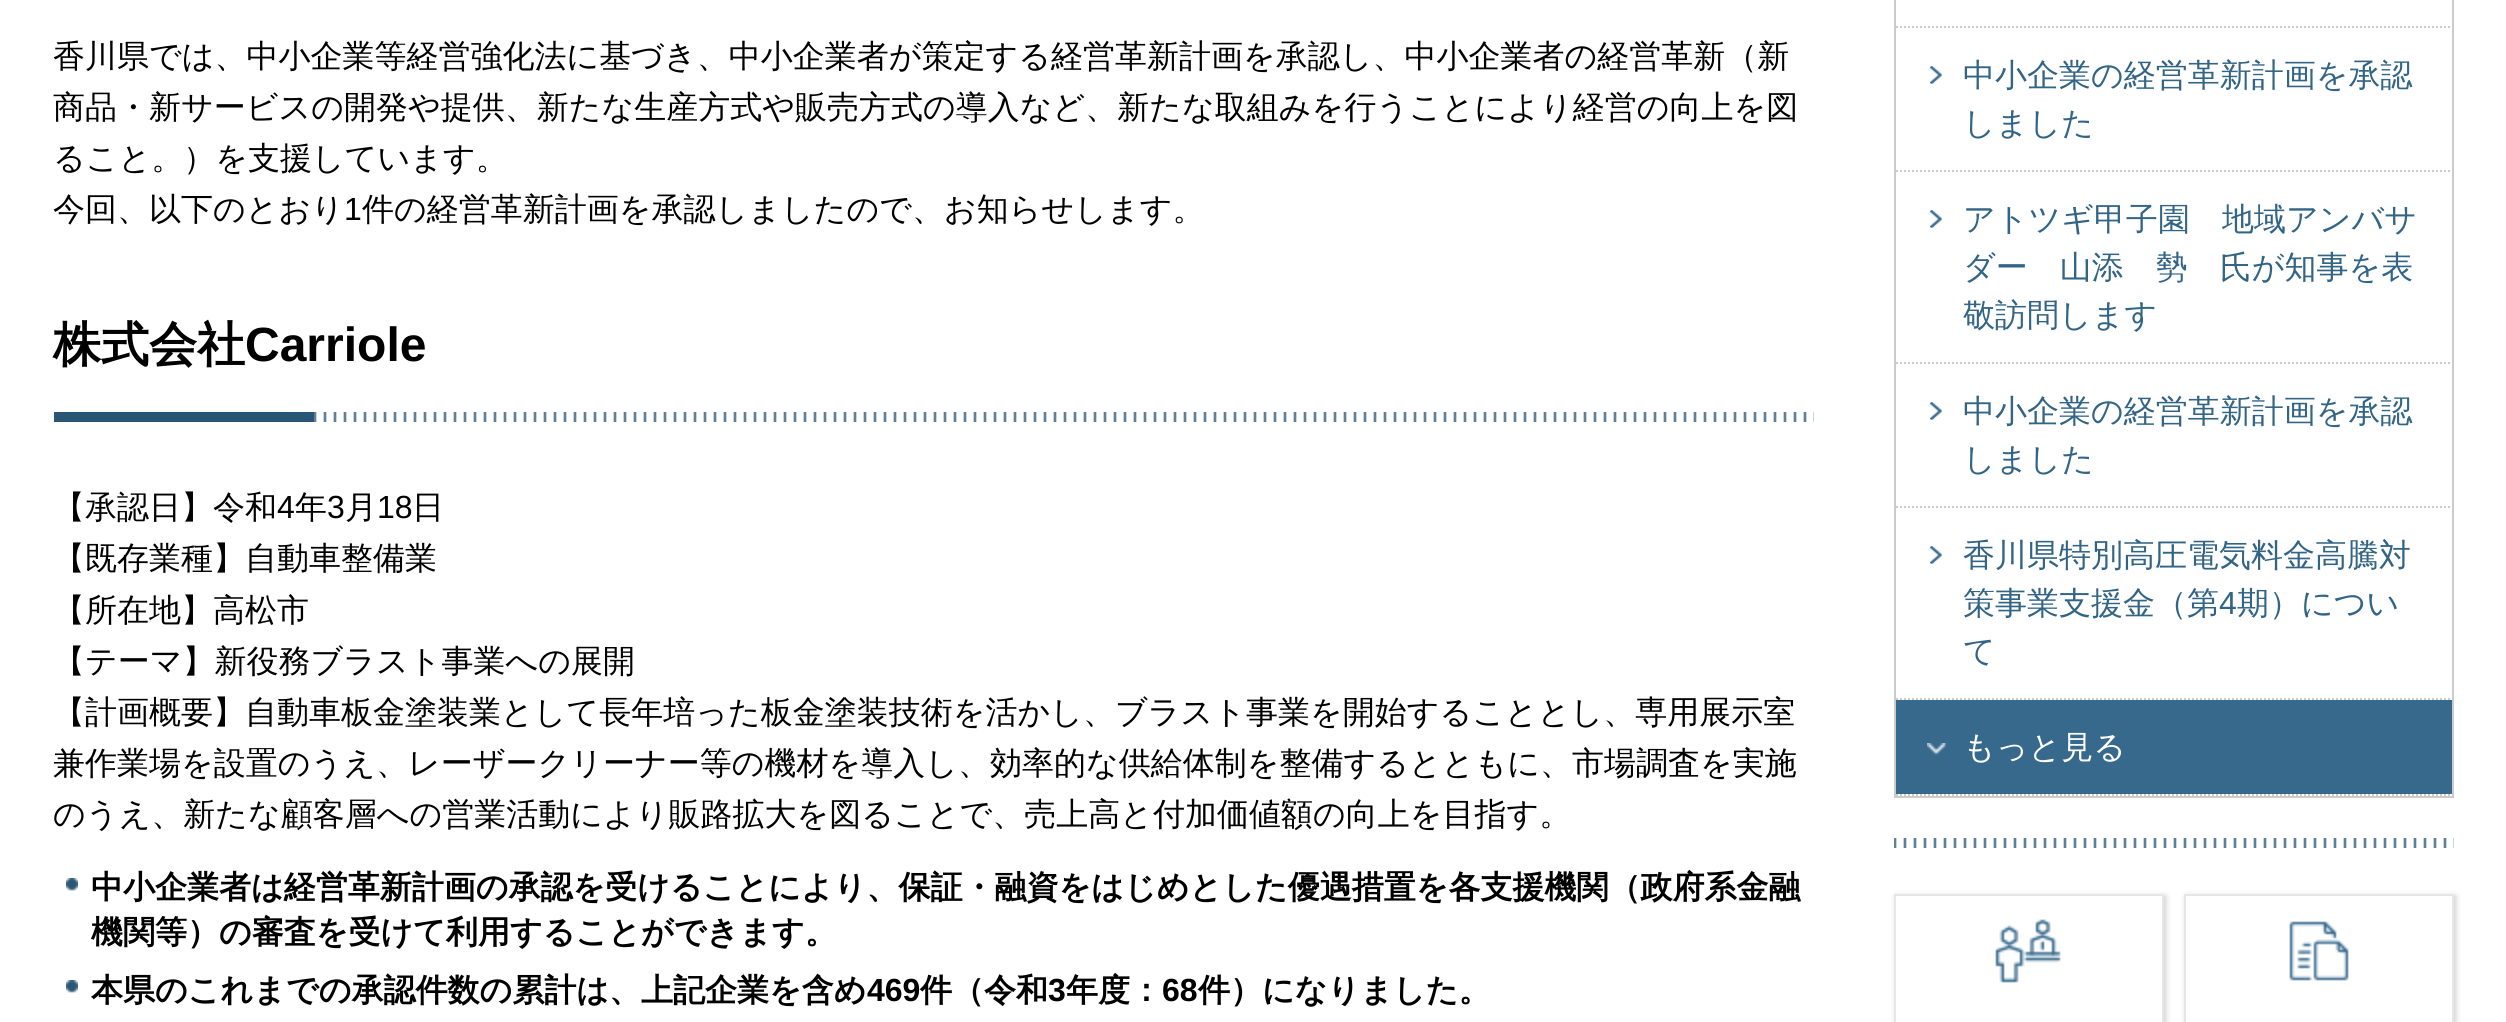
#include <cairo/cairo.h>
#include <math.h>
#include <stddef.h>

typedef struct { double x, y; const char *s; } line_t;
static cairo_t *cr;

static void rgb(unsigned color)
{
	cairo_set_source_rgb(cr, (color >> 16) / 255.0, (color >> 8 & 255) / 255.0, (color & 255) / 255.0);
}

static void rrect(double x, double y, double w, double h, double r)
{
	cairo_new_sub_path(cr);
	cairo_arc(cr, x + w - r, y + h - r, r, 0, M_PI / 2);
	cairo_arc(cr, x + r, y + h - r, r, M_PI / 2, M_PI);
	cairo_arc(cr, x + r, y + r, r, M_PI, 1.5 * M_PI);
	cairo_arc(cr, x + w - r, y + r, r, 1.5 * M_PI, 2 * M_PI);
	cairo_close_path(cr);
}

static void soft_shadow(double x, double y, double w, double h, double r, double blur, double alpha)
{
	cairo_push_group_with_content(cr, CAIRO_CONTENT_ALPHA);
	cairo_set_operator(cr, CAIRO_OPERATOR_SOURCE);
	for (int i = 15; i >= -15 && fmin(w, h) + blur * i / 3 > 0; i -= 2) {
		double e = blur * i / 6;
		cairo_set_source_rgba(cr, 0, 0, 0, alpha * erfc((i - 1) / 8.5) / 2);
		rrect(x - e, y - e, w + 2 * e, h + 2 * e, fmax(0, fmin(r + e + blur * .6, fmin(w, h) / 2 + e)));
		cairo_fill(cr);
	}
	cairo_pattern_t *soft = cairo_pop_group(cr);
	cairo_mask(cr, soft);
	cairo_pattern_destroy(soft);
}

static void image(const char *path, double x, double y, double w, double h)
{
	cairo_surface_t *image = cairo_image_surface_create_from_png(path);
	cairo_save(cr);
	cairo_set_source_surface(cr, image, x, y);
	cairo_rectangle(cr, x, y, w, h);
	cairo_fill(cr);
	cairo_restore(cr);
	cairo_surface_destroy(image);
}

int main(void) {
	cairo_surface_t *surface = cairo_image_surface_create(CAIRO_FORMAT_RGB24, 2506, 1022);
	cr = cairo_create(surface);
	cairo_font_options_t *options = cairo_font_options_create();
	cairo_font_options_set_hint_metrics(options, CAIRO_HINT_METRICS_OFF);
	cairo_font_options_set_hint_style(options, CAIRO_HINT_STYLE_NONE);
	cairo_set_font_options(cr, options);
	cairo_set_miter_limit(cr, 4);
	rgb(0xffffff);
	cairo_paint(cr);
	image("img/1.png", 314, 412, 1500, 10);
	rgb(0x295676);
	cairo_rectangle(cr, 54, 412, 260, 10);
	cairo_fill(cr);
	image("img/2.png", 66, 878, 12, 13);
	image("img/2.png", 66, 980, 12, 13);
	cairo_rectangle(cr, 1895, -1, 558, 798);
	rgb(0xcccccc);
	cairo_stroke(cr);
	cairo_new_path(cr);
	cairo_move_to(cr, 1896, 27);
	cairo_line_to(cr, 2452, 27);
	cairo_set_dash(cr, (double[]){2, 2}, 2, 0);
	cairo_stroke(cr);
	cairo_new_path(cr);
	cairo_move_to(cr, 1896, 171);
	cairo_line_to(cr, 2452, 171);
	cairo_stroke(cr);
	image("img/3.png", 1930, 66, 12, 18);
	cairo_new_path(cr);
	cairo_move_to(cr, 1896, 363);
	cairo_line_to(cr, 2452, 363);
	cairo_stroke(cr);
	image("img/3.png", 1930, 210, 12, 18);
	cairo_new_path(cr);
	cairo_move_to(cr, 1896, 507);
	cairo_line_to(cr, 2452, 507);
	cairo_stroke(cr);
	image("img/3.png", 1930, 402, 12, 18);
	cairo_new_path(cr);
	cairo_move_to(cr, 1896, 699);
	cairo_line_to(cr, 2452, 699);
	cairo_stroke(cr);
	image("img/3.png", 1930, 546, 12, 18);
	cairo_new_path(cr);
	cairo_move_to(cr, 1896, 795);
	cairo_line_to(cr, 2452, 795);
	cairo_stroke(cr);
	rgb(0x37698d);
	cairo_rectangle(cr, 1896, 700, 556, 94);
	cairo_fill(cr);
	image("img/4.png", 1927, 743, 20, 12);
	image("img/5.png", 1894, 838, 560, 10);
	cairo_save(cr);
	cairo_set_fill_rule(cr, CAIRO_FILL_RULE_EVEN_ODD);
	cairo_new_path(cr);
	cairo_move_to(cr, 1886, 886);
	cairo_line_to(cr, 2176, 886);
	cairo_line_to(cr, 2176, 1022);
	cairo_line_to(cr, 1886, 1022);
	cairo_close_path(cr);
	cairo_move_to(cr, 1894, 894);
	cairo_line_to(cr, 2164, 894);
	cairo_line_to(cr, 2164, 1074);
	cairo_line_to(cr, 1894, 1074);
	cairo_close_path(cr);
	cairo_clip(cr);
	rgb(0x0b0205);
	soft_shadow(1896, 896, 270, 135, 0, 3, 0.2);
	cairo_restore(cr);
	cairo_rectangle(cr, 1895, 895, 268, 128);
	rgb(0xe6e6e6);
	cairo_set_dash(cr, NULL, 0, 0);
	cairo_stroke(cr);
	image("img/6.png", 1995, 919, 66, 64);
	cairo_save(cr);
	cairo_set_fill_rule(cr, CAIRO_FILL_RULE_EVEN_ODD);
	cairo_new_path(cr);
	cairo_move_to(cr, 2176, 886);
	cairo_line_to(cr, 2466, 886);
	cairo_line_to(cr, 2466, 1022);
	cairo_line_to(cr, 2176, 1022);
	cairo_close_path(cr);
	cairo_move_to(cr, 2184, 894);
	cairo_line_to(cr, 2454, 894);
	cairo_line_to(cr, 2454, 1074);
	cairo_line_to(cr, 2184, 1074);
	cairo_close_path(cr);
	cairo_clip(cr);
	rgb(0x0b0205);
	soft_shadow(2186, 896, 270, 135, 0, 3, 0.2);
	cairo_restore(cr);
	cairo_rectangle(cr, 2185, 895, 268, 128);
	cairo_stroke(cr);
	image("img/7.png", 2289, 921, 60, 60);
	cairo_select_font_face(cr, "WenQuanYi Zen Hei Medium", CAIRO_FONT_SLANT_NORMAL, CAIRO_FONT_WEIGHT_NORMAL);
	cairo_set_font_size(cr, 32);
	rgb(0x000000);
	{
		static const line_t items[] = {
			{53, 67, "香川県では、中小企業等経営強化法に基づき、中小企業者が策定する経営革新計画を承認し、中小企業者の経営革新（新"},
			{53, 118, "商品・新サービスの開発や提供、新たな生産方式や販売方式の導入など、新たな取組みを行うことにより経営の向上を図"},
			{53, 169, "ること。）を支援しています。"},
			{53, 220, "今回、以下のとおり"},
		};
		for (size_t i = 0; i < sizeof items / sizeof *items; i++) {
			cairo_move_to(cr, items[i].x, items[i].y);
			cairo_show_text(cr, items[i].s);
		}
	}
	cairo_select_font_face(cr, "Liberation Sans", CAIRO_FONT_SLANT_NORMAL, CAIRO_FONT_WEIGHT_NORMAL);
	cairo_move_to(cr, 344, 220);
	cairo_show_text(cr, "1");
	cairo_select_font_face(cr, "WenQuanYi Zen Hei Medium", CAIRO_FONT_SLANT_NORMAL, CAIRO_FONT_WEIGHT_NORMAL);
	cairo_move_to(cr, 362, 220);
	cairo_show_text(cr, "件の経営革新計画を承認しましたので、お知らせします。");
	cairo_select_font_face(cr, "WenQuanYi Zen Hei", CAIRO_FONT_SLANT_NORMAL, CAIRO_FONT_WEIGHT_BOLD);
	cairo_set_font_size(cr, 48);
	cairo_move_to(cr, 53, 361);
	cairo_show_text(cr, "株式会社");
	cairo_select_font_face(cr, "Liberation Sans", CAIRO_FONT_SLANT_NORMAL, CAIRO_FONT_WEIGHT_BOLD);
	cairo_move_to(cr, 245, 361);
	cairo_show_text(cr, "Carriole");
	cairo_select_font_face(cr, "WenQuanYi Zen Hei Medium", CAIRO_FONT_SLANT_NORMAL, CAIRO_FONT_WEIGHT_NORMAL);
	cairo_set_font_size(cr, 32);
	cairo_move_to(cr, 53, 518);
	cairo_show_text(cr, "【承認日】令和");
	cairo_select_font_face(cr, "Liberation Sans", CAIRO_FONT_SLANT_NORMAL, CAIRO_FONT_WEIGHT_NORMAL);
	cairo_move_to(cr, 277, 518);
	cairo_show_text(cr, "4");
	cairo_select_font_face(cr, "WenQuanYi Zen Hei Medium", CAIRO_FONT_SLANT_NORMAL, CAIRO_FONT_WEIGHT_NORMAL);
	cairo_move_to(cr, 295, 518);
	cairo_show_text(cr, "年");
	cairo_select_font_face(cr, "Liberation Sans", CAIRO_FONT_SLANT_NORMAL, CAIRO_FONT_WEIGHT_NORMAL);
	cairo_move_to(cr, 327, 518);
	cairo_show_text(cr, "3");
	cairo_select_font_face(cr, "WenQuanYi Zen Hei Medium", CAIRO_FONT_SLANT_NORMAL, CAIRO_FONT_WEIGHT_NORMAL);
	cairo_move_to(cr, 345, 518);
	cairo_show_text(cr, "月");
	cairo_select_font_face(cr, "Liberation Sans", CAIRO_FONT_SLANT_NORMAL, CAIRO_FONT_WEIGHT_NORMAL);
	cairo_move_to(cr, 377, 518);
	cairo_show_text(cr, "18");
	cairo_select_font_face(cr, "WenQuanYi Zen Hei Medium", CAIRO_FONT_SLANT_NORMAL, CAIRO_FONT_WEIGHT_NORMAL);
	{
		static const line_t items[] = {
			{412, 518, "日"},
			{53, 569, "【既存業種】自動車整備業"},
			{53, 621, "【所在地】高松市"},
			{53, 672, "【テーマ】新役務ブラスト事業への展開"},
			{53, 723, "【計画概要】自動車板金塗装業として長年培った板金塗装技術を活かし、ブラスト事業を開始することとし、専用展示室"},
			{53, 774, "兼作業場を設置のうえ、レーザークリーナー等の機材を導入し、効率的な供給体制を整備するとともに、市場調査を実施"},
			{53, 825, "のうえ、新たな顧客層への営業活動により販路拡大を図ることで、売上高と付加価値額の向上を目指す。"},
		};
		for (size_t i = 0; i < sizeof items / sizeof *items; i++) {
			cairo_move_to(cr, items[i].x, items[i].y);
			cairo_show_text(cr, items[i].s);
		}
	}
	cairo_select_font_face(cr, "WenQuanYi Zen Hei", CAIRO_FONT_SLANT_NORMAL, CAIRO_FONT_WEIGHT_BOLD);
	{
		static const line_t items[] = {
			{91, 898, "中小企業者は経営革新計画の承認を受けることにより、保証・融資をはじめとした優遇措置を各支援機関（政府系金融"},
			{91, 943, "機関等）の審査を受けて利用することができます。"},
			{91, 1001, "本県のこれまでの承認件数の累計は、上記企業を含め"},
		};
		for (size_t i = 0; i < sizeof items / sizeof *items; i++) {
			cairo_move_to(cr, items[i].x, items[i].y);
			cairo_show_text(cr, items[i].s);
		}
	}
	cairo_select_font_face(cr, "Liberation Sans", CAIRO_FONT_SLANT_NORMAL, CAIRO_FONT_WEIGHT_BOLD);
	cairo_move_to(cr, 867, 1001);
	cairo_show_text(cr, "469");
	cairo_select_font_face(cr, "WenQuanYi Zen Hei", CAIRO_FONT_SLANT_NORMAL, CAIRO_FONT_WEIGHT_BOLD);
	cairo_move_to(cr, 920, 1001);
	cairo_show_text(cr, "件（令和");
	cairo_select_font_face(cr, "Liberation Sans", CAIRO_FONT_SLANT_NORMAL, CAIRO_FONT_WEIGHT_BOLD);
	cairo_move_to(cr, 1048, 1001);
	cairo_show_text(cr, "3");
	cairo_select_font_face(cr, "WenQuanYi Zen Hei", CAIRO_FONT_SLANT_NORMAL, CAIRO_FONT_WEIGHT_BOLD);
	cairo_move_to(cr, 1066, 1001);
	cairo_show_text(cr, "年度：");
	cairo_select_font_face(cr, "Liberation Sans", CAIRO_FONT_SLANT_NORMAL, CAIRO_FONT_WEIGHT_BOLD);
	cairo_move_to(cr, 1162, 1001);
	cairo_show_text(cr, "68");
	cairo_select_font_face(cr, "WenQuanYi Zen Hei", CAIRO_FONT_SLANT_NORMAL, CAIRO_FONT_WEIGHT_BOLD);
	cairo_move_to(cr, 1198, 1001);
	cairo_show_text(cr, "件）になりました。");
	cairo_select_font_face(cr, "WenQuanYi Zen Hei Medium", CAIRO_FONT_SLANT_NORMAL, CAIRO_FONT_WEIGHT_NORMAL);
	rgb(0x326485);
	{
		static const line_t items[] = {
			{1963, 86, "中小企業の経営革新計画を承認"},
			{1963, 134, "しました"},
			{1963, 230, "アトツギ甲子園　地域アンバサ"},
			{1963, 278, "ダー　山添　勢　氏が知事を表"},
			{1963, 326, "敬訪問します"},
			{1963, 422, "中小企業の経営革新計画を承認"},
			{1963, 470, "しました"},
			{1963, 566, "香川県特別高圧電気料金高騰対"},
			{1963, 614, "策事業支援金（第"},
		};
		for (size_t i = 0; i < sizeof items / sizeof *items; i++) {
			cairo_move_to(cr, items[i].x, items[i].y);
			cairo_show_text(cr, items[i].s);
		}
	}
	cairo_select_font_face(cr, "Liberation Sans", CAIRO_FONT_SLANT_NORMAL, CAIRO_FONT_WEIGHT_NORMAL);
	cairo_move_to(cr, 2219, 614);
	cairo_show_text(cr, "4");
	cairo_select_font_face(cr, "WenQuanYi Zen Hei Medium", CAIRO_FONT_SLANT_NORMAL, CAIRO_FONT_WEIGHT_NORMAL);
	cairo_move_to(cr, 2237, 614);
	cairo_show_text(cr, "期）につい");
	cairo_move_to(cr, 1963, 662);
	cairo_show_text(cr, "て");
	rgb(0xffffff);
	cairo_move_to(cr, 1963, 758);
	cairo_show_text(cr, "もっと見る");
	cairo_surface_write_to_png(surface, "page.png");
	cairo_font_options_destroy(options);
	cairo_destroy(cr);
	cairo_surface_destroy(surface);
	return 0;
}
